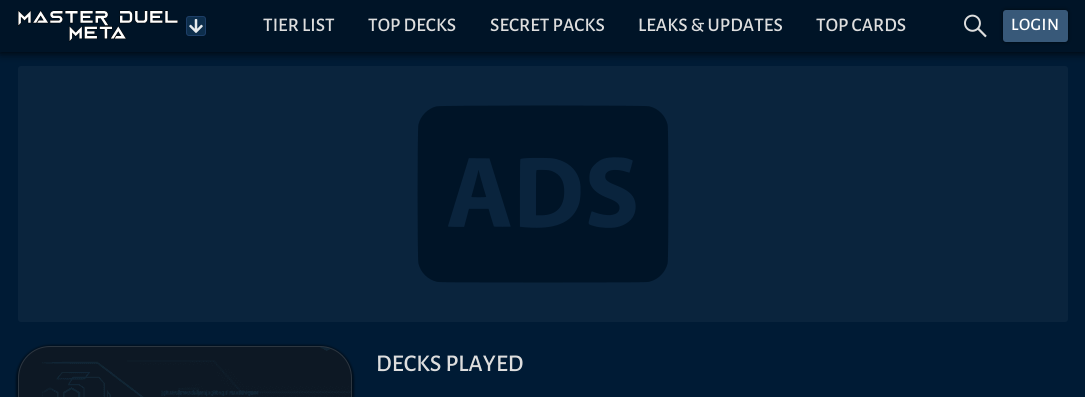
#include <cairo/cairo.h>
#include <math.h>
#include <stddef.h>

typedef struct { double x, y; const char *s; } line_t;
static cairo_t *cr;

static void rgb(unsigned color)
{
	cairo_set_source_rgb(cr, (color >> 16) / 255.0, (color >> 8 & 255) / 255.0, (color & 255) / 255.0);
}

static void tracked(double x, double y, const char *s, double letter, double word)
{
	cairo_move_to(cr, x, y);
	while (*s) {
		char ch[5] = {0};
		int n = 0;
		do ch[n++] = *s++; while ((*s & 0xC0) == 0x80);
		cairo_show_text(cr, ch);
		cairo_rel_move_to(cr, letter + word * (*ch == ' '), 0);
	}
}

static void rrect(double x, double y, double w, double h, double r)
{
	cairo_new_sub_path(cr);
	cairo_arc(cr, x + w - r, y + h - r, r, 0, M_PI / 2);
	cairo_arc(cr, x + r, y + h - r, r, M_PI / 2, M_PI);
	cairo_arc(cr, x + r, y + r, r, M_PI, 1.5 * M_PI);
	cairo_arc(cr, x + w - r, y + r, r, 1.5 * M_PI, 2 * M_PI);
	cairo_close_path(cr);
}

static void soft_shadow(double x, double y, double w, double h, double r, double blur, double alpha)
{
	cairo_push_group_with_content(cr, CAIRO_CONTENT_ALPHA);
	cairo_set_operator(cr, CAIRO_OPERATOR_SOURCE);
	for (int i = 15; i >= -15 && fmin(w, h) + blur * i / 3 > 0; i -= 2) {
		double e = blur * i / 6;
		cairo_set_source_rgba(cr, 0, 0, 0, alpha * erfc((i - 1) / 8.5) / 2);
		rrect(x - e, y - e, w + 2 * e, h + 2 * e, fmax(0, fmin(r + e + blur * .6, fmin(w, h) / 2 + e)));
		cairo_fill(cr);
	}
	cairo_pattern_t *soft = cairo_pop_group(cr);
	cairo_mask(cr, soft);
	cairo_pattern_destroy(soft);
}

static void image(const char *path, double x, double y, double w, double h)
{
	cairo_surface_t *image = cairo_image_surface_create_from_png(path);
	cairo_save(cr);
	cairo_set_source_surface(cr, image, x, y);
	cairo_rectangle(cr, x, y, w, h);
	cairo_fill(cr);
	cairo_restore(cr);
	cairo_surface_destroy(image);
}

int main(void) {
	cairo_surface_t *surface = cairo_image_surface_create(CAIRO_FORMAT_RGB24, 1085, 397);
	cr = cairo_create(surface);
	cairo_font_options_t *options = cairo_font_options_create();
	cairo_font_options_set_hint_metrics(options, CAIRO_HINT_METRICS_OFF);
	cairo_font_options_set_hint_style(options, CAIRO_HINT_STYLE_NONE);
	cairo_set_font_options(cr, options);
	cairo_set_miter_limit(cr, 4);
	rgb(0x001b35);
	cairo_paint(cr);
	rgb(0x0a243d);
	rrect(18, 66, 1050, 256, 3);
	cairo_fill(cr);
	rgb(0x000000);
	soft_shadow(0, 0, 1085, 52, 0, 5, 1);
	rgb(0x001427);
	cairo_rectangle(cr, 0, 0, 1085, 52);
	cairo_fill(cr);
	image("img/1.png", 18, 10, 160, 32);
	rgb(0x0d2e4c);
	rrect(186.5, 16.5, 19, 19, 2.5);
	cairo_fill_preserve(cr);
	rgb(0x1d3e67);
	cairo_set_line_width(cr, 1);
	cairo_stroke(cr);
	image("img/2.png", 189, 19, 14, 14);
	image("img/3.png", 964, 14, 23, 24);
	rgb(0x00080e);
	soft_shadow(1003, 10, 65, 32, 3, 2, 1);
	rgb(0x385979);
	rrect(1003, 10, 65, 32, 3);
	cairo_fill(cr);
	image("img/4.png", 417, 105, 252, 178);
	rgb(0x000000);
	soft_shadow(16, 345, 338, 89, 34, 1, 0.5);
	rgb(0x0d1824);
	rrect(18, 346, 334, 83, 32);
	cairo_fill(cr);
	rrect(18.5, 346.5, 333, 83, 31.5);
	cairo_set_source_rgba(cr, 1, 1, 1, 0.13);
	cairo_stroke(cr);
	image("img/5.png", 42, 347, 309, 50);
	cairo_select_font_face(cr, "Alegreya Sans Medium", CAIRO_FONT_SLANT_NORMAL, CAIRO_FONT_WEIGHT_NORMAL);
	cairo_set_font_size(cr, 19.25);
	rgb(0xdedede);
	{
		static const line_t items[] = {
			{263, 31, "TIER LIST"},
			{368, 31, "TOP DECKS"},
			{490, 31, "SECRET PACKS"},
			{638, 31, "LEAKS & UPDATES"},
			{816, 31, "TOP CARDS"},
		};
		for (size_t i = 0; i < sizeof items / sizeof *items; i++) {
			tracked(items[i].x, items[i].y, items[i].s, 0.1, 0);
		}
	}
	cairo_set_font_size(cr, 17.5);
	rgb(0xffffff);
	tracked(1011, 30, "LOGIN", 0.5, 0);
	cairo_set_font_size(cr, 24);
	rgb(0xdedede);
	tracked(376, 371, "DECKS PLAYED", 0.1, 0);
	cairo_surface_write_to_png(surface, "page.png");
	cairo_font_options_destroy(options);
	cairo_destroy(cr);
	cairo_surface_destroy(surface);
	return 0;
}
